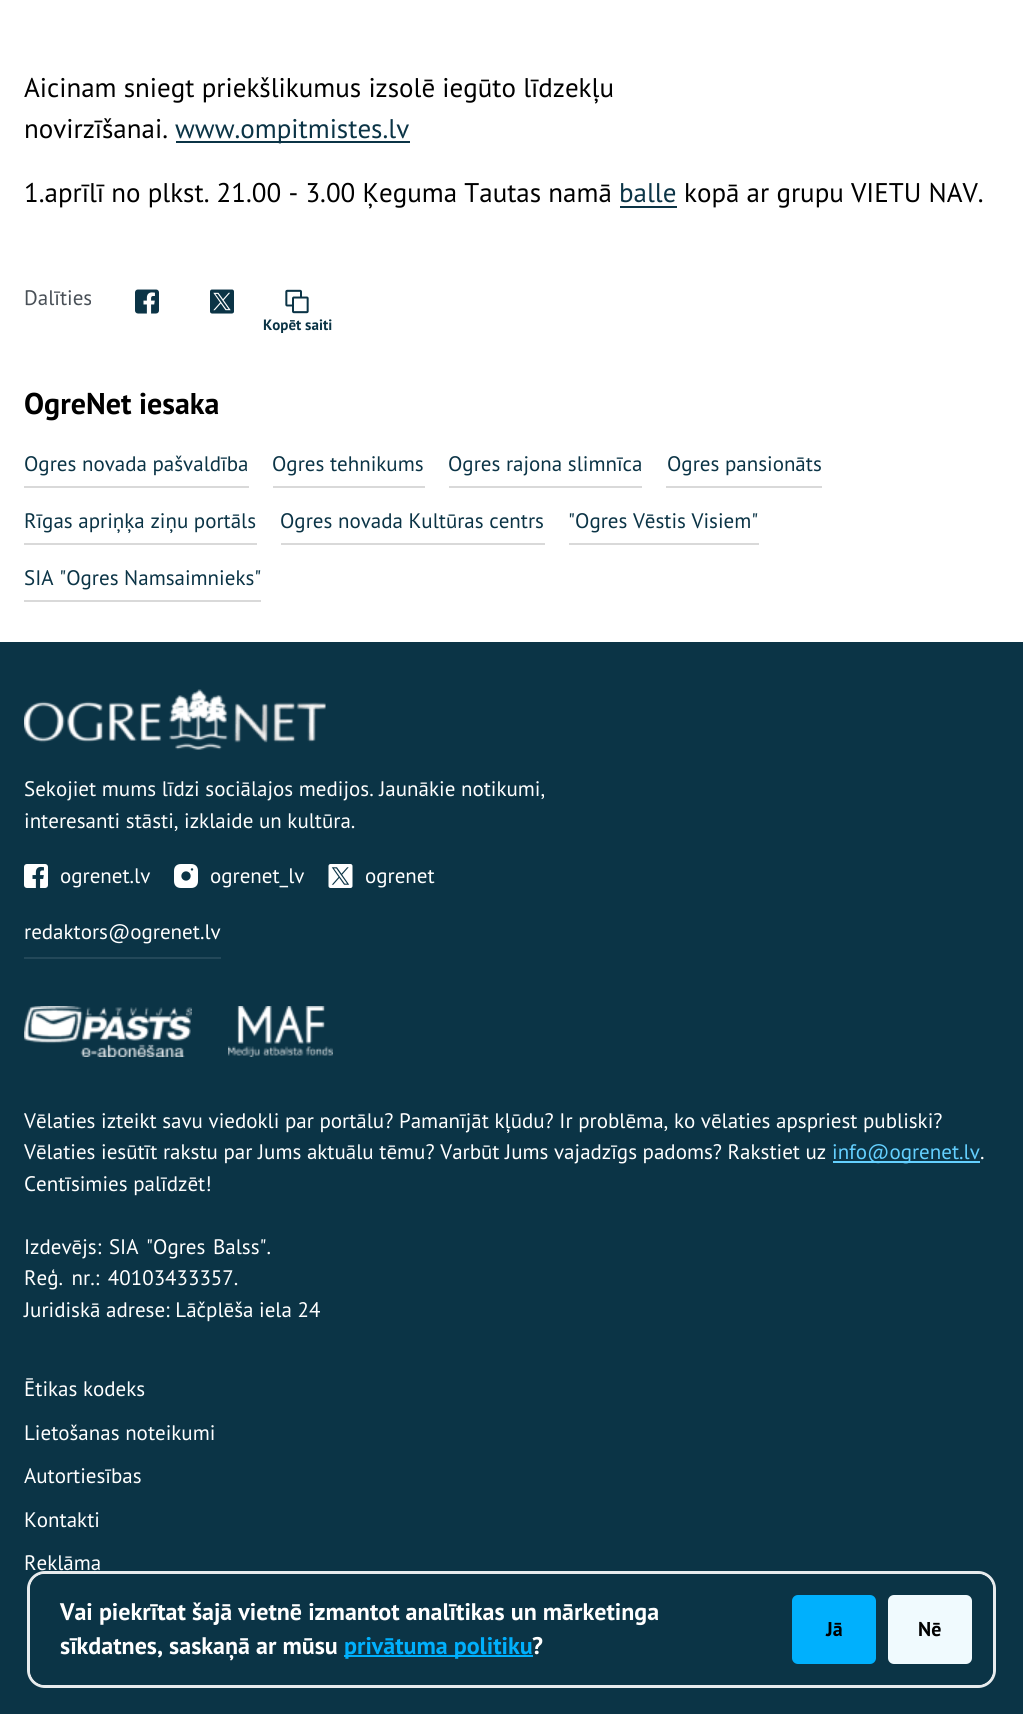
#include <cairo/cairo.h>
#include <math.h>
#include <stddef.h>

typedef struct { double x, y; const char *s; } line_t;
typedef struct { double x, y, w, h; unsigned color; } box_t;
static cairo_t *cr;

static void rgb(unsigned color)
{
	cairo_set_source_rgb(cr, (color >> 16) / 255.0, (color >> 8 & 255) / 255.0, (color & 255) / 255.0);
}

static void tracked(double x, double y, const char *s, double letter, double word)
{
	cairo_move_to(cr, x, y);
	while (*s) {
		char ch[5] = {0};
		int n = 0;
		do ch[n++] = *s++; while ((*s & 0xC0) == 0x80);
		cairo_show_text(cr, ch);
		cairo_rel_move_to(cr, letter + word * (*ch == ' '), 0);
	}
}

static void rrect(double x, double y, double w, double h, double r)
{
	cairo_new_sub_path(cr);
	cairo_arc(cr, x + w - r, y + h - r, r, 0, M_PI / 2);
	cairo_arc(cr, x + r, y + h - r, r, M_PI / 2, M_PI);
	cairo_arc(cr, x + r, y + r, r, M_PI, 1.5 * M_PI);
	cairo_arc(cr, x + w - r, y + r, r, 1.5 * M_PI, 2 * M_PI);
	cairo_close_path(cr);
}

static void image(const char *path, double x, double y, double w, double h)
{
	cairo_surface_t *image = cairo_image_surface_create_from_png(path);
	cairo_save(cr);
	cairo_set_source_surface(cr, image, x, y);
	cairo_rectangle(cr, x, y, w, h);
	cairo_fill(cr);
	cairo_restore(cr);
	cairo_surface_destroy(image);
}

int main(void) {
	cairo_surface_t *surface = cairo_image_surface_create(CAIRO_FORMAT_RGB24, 1023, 1714);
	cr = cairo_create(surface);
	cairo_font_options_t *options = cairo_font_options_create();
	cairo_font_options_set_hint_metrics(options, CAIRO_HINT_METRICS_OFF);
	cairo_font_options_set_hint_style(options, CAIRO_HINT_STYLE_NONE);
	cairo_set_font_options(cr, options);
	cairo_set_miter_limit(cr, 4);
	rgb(0xffffff);
	cairo_paint(cr);
	rgb(0x0b3446);
	cairo_rectangle(cr, 176, 141, 234, 2);
	cairo_fill(cr);
	cairo_rectangle(cr, 620, 206, 57, 2);
	cairo_fill(cr);
	image("img/1.png", 135, 289, 24, 25);
	image("img/2.png", 210, 289, 24, 25);
	image("img/3.png", 285, 289, 24, 25);
	{
		static const box_t items[] = {
			{24, 486, 225, 2, 0xd9d9d9},
			{273, 486, 152, 2, 0xd9d9d9},
			{449, 486, 193, 2, 0xd9d9d9},
			{666, 486, 156, 2, 0xd9d9d9},
			{24, 543, 233, 2, 0xd9d9d9},
			{281, 543, 264, 2, 0xd9d9d9},
			{569, 543, 190, 2, 0xd9d9d9},
			{24, 600, 237, 2, 0xd9d9d9},
			{0, 642, 1023, 1072, 0x0b3446},
		};
		for (size_t i = 0; i < sizeof items / sizeof *items; i++) {
			rgb(items[i].color);
			cairo_rectangle(cr, items[i].x, items[i].y, items[i].w, items[i].h);
			cairo_fill(cr);
		}
	}
	image("img/4.png", 24, 689, 302, 61);
	image("img/5.png", 24, 864, 24, 24);
	image("img/6.png", 174, 864, 24, 24);
	image("img/7.png", 328, 864, 25, 24);
	rgb(0x234859);
	cairo_rectangle(cr, 24, 957, 197, 2);
	cairo_fill(cr);
	image("img/8.png", 24, 1006, 168, 51);
	image("img/9.png", 228, 1006, 105, 51);
	rgb(0x64d0ff);
	cairo_rectangle(cr, 833, 1161, 147, 2);
	cairo_fill(cr);
	rrect(28.5, 1572.5, 966, 114, 16.5);
	cairo_set_source_rgba(cr, 1, 1, 1, 0.9);
	cairo_set_line_width(cr, 3);
	cairo_stroke(cr);
	rgb(0x0b3446);
	rrect(30, 1574, 963, 111, 15);
	cairo_fill(cr);
	rgb(0x00b0fd);
	cairo_rectangle(cr, 344, 1655, 189, 2);
	cairo_fill(cr);
	rrect(793, 1596, 82, 67, 5);
	cairo_fill_preserve(cr);
	cairo_set_line_width(cr, 2);
	cairo_stroke(cr);
	rgb(0xf0fafe);
	rrect(889, 1596, 82, 67, 5);
	cairo_fill_preserve(cr);
	cairo_stroke(cr);
	cairo_select_font_face(cr, "PT Sans", CAIRO_FONT_SLANT_NORMAL, CAIRO_FONT_WEIGHT_NORMAL);
	cairo_set_font_size(cr, 27);
	rgb(0x000000);
	cairo_move_to(cr, 24, 97);
	cairo_show_text(cr, "Aicinam sniegt priekšlikumus izsolē iegūto līdzekļu");
	cairo_move_to(cr, 24, 138);
	cairo_show_text(cr, "novirzīšanai.");
	rgb(0x0b3446);
	cairo_move_to(cr, 175, 138);
	cairo_show_text(cr, "www.ompitmistes.lv");
	rgb(0x000000);
	cairo_move_to(cr, 24, 202);
	cairo_show_text(cr, "1.aprīlī no plkst. 21.00 - 3.00 Ķeguma Tautas namā");
	rgb(0x0b3446);
	cairo_move_to(cr, 619, 202);
	cairo_show_text(cr, "balle");
	rgb(0x000000);
	cairo_move_to(cr, 684, 202);
	cairo_show_text(cr, "kopā ar grupu VIETU NAV.");
	cairo_set_font_size(cr, 21);
	rgb(0x495057);
	cairo_move_to(cr, 24, 305);
	cairo_show_text(cr, "Dalīties");
	cairo_select_font_face(cr, "PT Sans", CAIRO_FONT_SLANT_NORMAL, CAIRO_FONT_WEIGHT_BOLD);
	cairo_set_font_size(cr, 15);
	rgb(0x0b3446);
	cairo_move_to(cr, 263, 330);
	cairo_show_text(cr, "Kopēt saiti");
	cairo_set_font_size(cr, 30);
	rgb(0x000000);
	cairo_move_to(cr, 24, 414);
	cairo_show_text(cr, "OgreNet iesaka");
	cairo_select_font_face(cr, "PT Sans", CAIRO_FONT_SLANT_NORMAL, CAIRO_FONT_WEIGHT_NORMAL);
	cairo_set_font_size(cr, 21);
	rgb(0x0b3446);
	{
		static const line_t items[] = {
			{24, 471, "Ogres novada pašvaldība"},
			{272, 471, "Ogres tehnikums"},
			{448, 471, "Ogres rajona slimnīca"},
			{667, 471, "Ogres pansionāts"},
			{24, 528, "Rīgas apriņķa ziņu portāls"},
			{280, 528, "Ogres novada Kultūras centrs"},
			{568, 528, "\"Ogres Vēstis Visiem\""},
			{24, 585, "SIA \"Ogres Namsaimnieks\""},
		};
		for (size_t i = 0; i < sizeof items / sizeof *items; i++) {
			cairo_move_to(cr, items[i].x, items[i].y);
			cairo_show_text(cr, items[i].s);
		}
	}
	rgb(0xffffff);
	{
		static const line_t items[] = {
			{24, 796, "Sekojiet mums līdzi sociālajos medijos. Jaunākie notikumi,"},
			{24, 828, "interesanti stāsti, izklaide un kultūra."},
			{60, 883, "ogrenet.lv"},
			{210, 883, "ogrenet_lv"},
			{365, 883, "ogrenet"},
			{24, 939, "redaktors@ogrenet.lv"},
			{24, 1128, "Vēlaties izteikt savu viedokli par portālu? Pamanījāt kļūdu? Ir problēma, ko vēlaties apspriest publiski?"},
			{24, 1159, "Vēlaties iesūtīt rakstu par Jums aktuālu tēmu? Varbūt Jums vajadzīgs padoms? Rakstiet uz"},
		};
		for (size_t i = 0; i < sizeof items / sizeof *items; i++) {
			cairo_move_to(cr, items[i].x, items[i].y);
			cairo_show_text(cr, items[i].s);
		}
	}
	rgb(0x64d0ff);
	cairo_move_to(cr, 832, 1159);
	cairo_show_text(cr, "info@ogrenet.lv");
	rgb(0xffffff);
	cairo_move_to(cr, 980, 1159);
	cairo_show_text(cr, ".");
	cairo_move_to(cr, 24, 1191);
	cairo_show_text(cr, "Centīsimies palīdzēt!");
	tracked(24, 1254, "Izdevējs: SIA \"Ogres Balss\".", 0, 2);
	tracked(24, 1285, "Reģ. nr.: 40103433357.", 0, 3);
	{
		static const line_t items[] = {
			{24, 1317, "Juridiskā adrese: Lāčplēša iela 24"},
			{24, 1396, "Ētikas kodeks"},
			{24, 1440, "Lietošanas noteikumi"},
			{24, 1483, "Autortiesības"},
			{24, 1527, "Kontakti"},
			{24, 1570, "Reklāma"},
		};
		for (size_t i = 0; i < sizeof items / sizeof *items; i++) {
			cairo_move_to(cr, items[i].x, items[i].y);
			cairo_show_text(cr, items[i].s);
		}
	}
	cairo_select_font_face(cr, "PT Sans", CAIRO_FONT_SLANT_NORMAL, CAIRO_FONT_WEIGHT_BOLD);
	cairo_set_font_size(cr, 24);
	cairo_move_to(cr, 60, 1620);
	cairo_show_text(cr, "Vai piekrītat šajā vietnē izmantot analītikas un mārketinga");
	cairo_move_to(cr, 60, 1654);
	cairo_show_text(cr, "sīkdatnes, saskaņā ar mūsu");
	rgb(0x00b0fd);
	cairo_move_to(cr, 344, 1654);
	cairo_show_text(cr, "privātuma politiku");
	rgb(0xffffff);
	cairo_move_to(cr, 532, 1654);
	cairo_show_text(cr, "?");
	cairo_set_font_size(cr, 20);
	rgb(0x000000);
	cairo_move_to(cr, 826, 1636);
	cairo_show_text(cr, "Jā");
	cairo_move_to(cr, 918, 1636);
	cairo_show_text(cr, "Nē");
	cairo_surface_write_to_png(surface, "page.png");
	cairo_font_options_destroy(options);
	cairo_destroy(cr);
	cairo_surface_destroy(surface);
	return 0;
}
